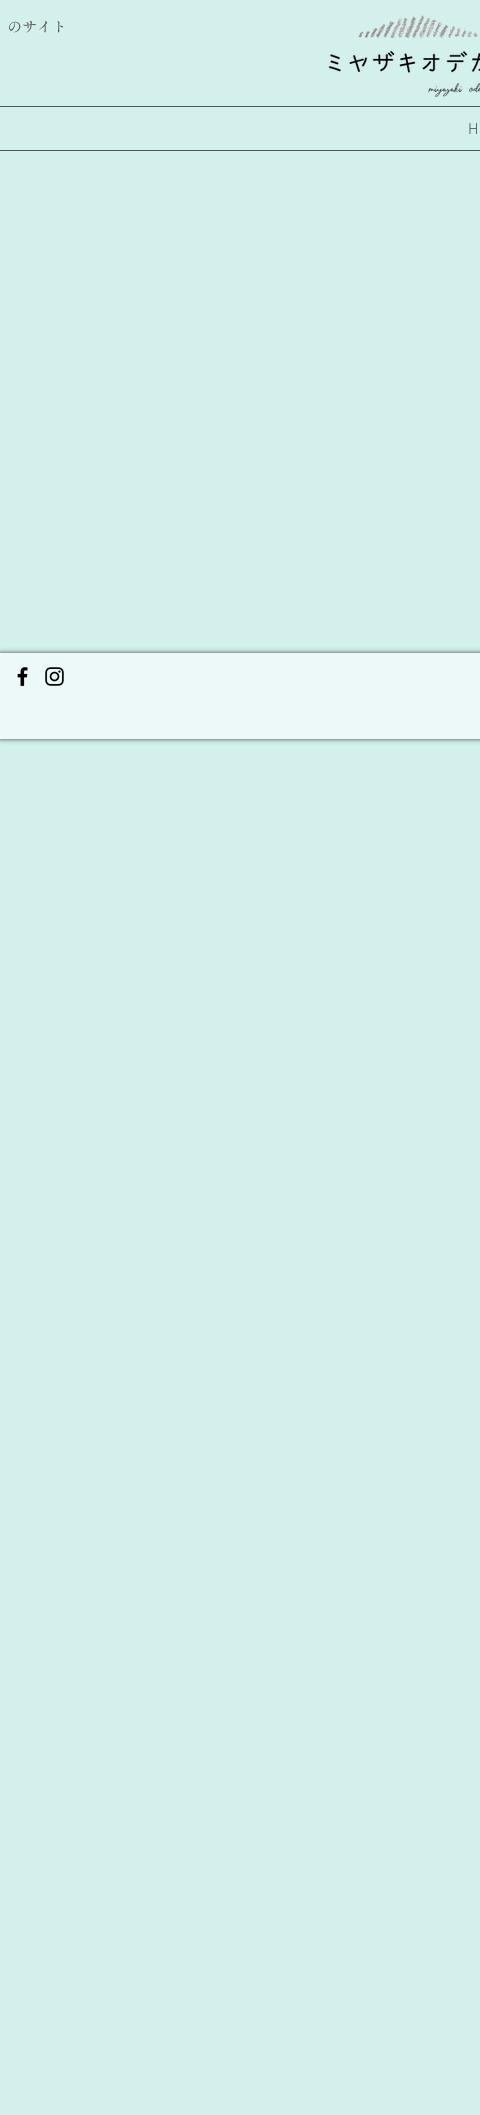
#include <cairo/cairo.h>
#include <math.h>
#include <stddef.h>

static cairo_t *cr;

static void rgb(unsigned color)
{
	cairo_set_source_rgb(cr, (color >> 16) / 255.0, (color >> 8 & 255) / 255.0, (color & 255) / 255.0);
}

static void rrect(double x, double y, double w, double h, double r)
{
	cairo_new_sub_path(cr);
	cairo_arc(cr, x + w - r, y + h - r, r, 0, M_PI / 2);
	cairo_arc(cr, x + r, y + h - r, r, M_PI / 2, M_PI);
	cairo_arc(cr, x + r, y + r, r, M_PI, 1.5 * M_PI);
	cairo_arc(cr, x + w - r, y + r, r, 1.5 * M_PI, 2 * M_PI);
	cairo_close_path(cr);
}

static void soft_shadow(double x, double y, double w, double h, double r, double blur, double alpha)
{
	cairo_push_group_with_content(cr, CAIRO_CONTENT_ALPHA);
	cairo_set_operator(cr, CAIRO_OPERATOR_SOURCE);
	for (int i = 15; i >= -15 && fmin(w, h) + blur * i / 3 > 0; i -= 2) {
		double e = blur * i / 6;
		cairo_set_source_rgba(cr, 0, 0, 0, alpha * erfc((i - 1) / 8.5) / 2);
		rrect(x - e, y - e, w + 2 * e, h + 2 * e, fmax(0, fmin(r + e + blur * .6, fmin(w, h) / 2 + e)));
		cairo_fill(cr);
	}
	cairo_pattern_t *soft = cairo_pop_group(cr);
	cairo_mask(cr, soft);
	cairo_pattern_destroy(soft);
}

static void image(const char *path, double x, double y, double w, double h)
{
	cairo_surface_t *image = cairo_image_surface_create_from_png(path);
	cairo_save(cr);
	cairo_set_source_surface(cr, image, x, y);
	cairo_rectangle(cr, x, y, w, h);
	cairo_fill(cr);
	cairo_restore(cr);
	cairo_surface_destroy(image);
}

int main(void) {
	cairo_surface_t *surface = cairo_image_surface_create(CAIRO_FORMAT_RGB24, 480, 2115);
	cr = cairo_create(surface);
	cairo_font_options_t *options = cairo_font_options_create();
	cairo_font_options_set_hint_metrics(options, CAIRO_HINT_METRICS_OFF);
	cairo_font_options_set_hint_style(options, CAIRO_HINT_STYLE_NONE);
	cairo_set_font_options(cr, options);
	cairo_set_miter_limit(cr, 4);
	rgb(0xd3f0ed);
	cairo_paint(cr);
	image("img/1.png", 328, 14, 152, 83);
	rgb(0x555555);
	cairo_rectangle(cr, 0, 106, 480, 1);
	cairo_fill(cr);
	cairo_rectangle(cr, 0, 150, 480, 1);
	cairo_fill(cr);
	rgb(0x000000);
	soft_shadow(0, 653, 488, 86, 0, 2.5, 0.7);
	rgb(0xedf9f8);
	cairo_rectangle(cr, 0, 653, 480, 86);
	cairo_fill(cr);
	image("img/2.png", 17, 667, 11, 20);
	image("img/3.png", 45, 667, 19, 19);
	cairo_select_font_face(cr, "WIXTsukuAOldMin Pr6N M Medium", CAIRO_FONT_SLANT_NORMAL, CAIRO_FONT_WEIGHT_NORMAL);
	cairo_set_font_size(cr, 15);
	rgb(0x555555);
	cairo_move_to(cr, 7, 32);
	cairo_show_text(cr, "のサイト");
	cairo_select_font_face(cr, "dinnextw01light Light", CAIRO_FONT_SLANT_NORMAL, CAIRO_FONT_WEIGHT_NORMAL);
	cairo_set_font_size(cr, 16);
	cairo_move_to(cr, 468, 134);
	cairo_show_text(cr, "H");
	cairo_surface_write_to_png(surface, "page.png");
	cairo_font_options_destroy(options);
	cairo_destroy(cr);
	cairo_surface_destroy(surface);
	return 0;
}
